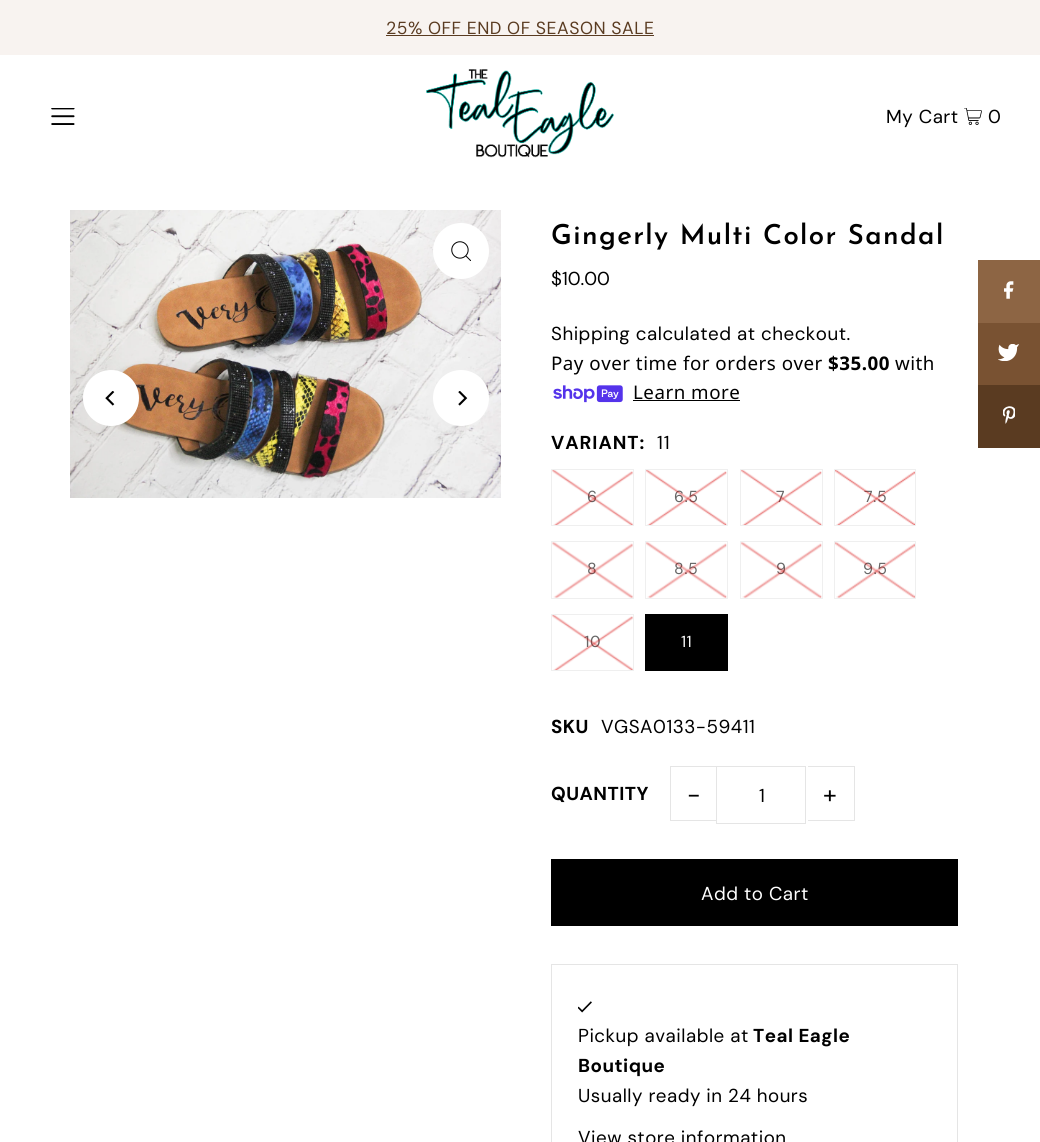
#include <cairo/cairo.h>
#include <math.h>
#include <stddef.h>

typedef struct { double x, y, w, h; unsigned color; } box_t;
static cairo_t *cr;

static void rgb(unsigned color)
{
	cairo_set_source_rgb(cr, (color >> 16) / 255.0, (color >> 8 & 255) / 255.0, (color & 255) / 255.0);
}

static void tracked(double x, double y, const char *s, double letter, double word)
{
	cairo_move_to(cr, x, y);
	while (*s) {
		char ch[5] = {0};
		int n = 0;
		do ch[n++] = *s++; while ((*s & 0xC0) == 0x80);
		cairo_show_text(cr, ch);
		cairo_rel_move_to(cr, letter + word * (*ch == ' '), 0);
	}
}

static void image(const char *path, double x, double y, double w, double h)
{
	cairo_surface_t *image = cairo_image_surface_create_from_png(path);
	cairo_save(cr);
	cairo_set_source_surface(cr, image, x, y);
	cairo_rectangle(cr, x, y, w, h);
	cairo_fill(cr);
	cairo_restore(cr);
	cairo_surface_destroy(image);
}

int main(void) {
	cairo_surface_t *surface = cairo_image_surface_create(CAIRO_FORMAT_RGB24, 1040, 1142);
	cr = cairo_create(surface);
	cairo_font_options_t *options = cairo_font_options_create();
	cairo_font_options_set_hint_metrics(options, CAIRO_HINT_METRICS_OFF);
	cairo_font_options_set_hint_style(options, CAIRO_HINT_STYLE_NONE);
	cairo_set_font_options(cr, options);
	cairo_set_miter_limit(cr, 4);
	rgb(0xffffff);
	cairo_paint(cr);
	rgb(0xf8f3f0);
	cairo_rectangle(cr, 0, 0, 1040, 55);
	cairo_fill(cr);
	rgb(0x5a3b21);
	cairo_rectangle(cr, 386, 35, 268, 1);
	cairo_fill(cr);
	image("img/1.png", 51, 108, 24, 17);
	image("img/2.png", 426, 69, 188, 89);
	image("img/3.png", 964, 108, 18, 17);
	image("img/4.png", 70, 210, 431, 288);
	rgb(0xffffff);
	cairo_arc(cr, 461, 251, 28, 0, 2 * M_PI);
	cairo_fill(cr);
	image("img/5.png", 451, 241, 20, 20);
	cairo_arc(cr, 111, 398, 28, 0, 2 * M_PI);
	cairo_fill(cr);
	image("img/6.png", 105, 391, 10, 15);
	cairo_arc(cr, 461, 398, 28, 0, 2 * M_PI);
	cairo_fill(cr);
	image("img/7.png", 458, 391, 10, 15);
	image("img/8.png", 553, 385, 70, 18);
	rgb(0x000000);
	cairo_rectangle(cr, 633, 400, 107, 1);
	cairo_fill(cr);
	cairo_rectangle(cr, 551.5, 469.5, 82, 56);
	rgb(0xefefef);
	cairo_set_line_width(cr, 1);
	cairo_stroke(cr);
	cairo_rectangle(cr, 645.5, 469.5, 82, 56);
	cairo_stroke(cr);
	cairo_rectangle(cr, 740.5, 469.5, 82, 56);
	cairo_stroke(cr);
	cairo_rectangle(cr, 834.5, 469.5, 81, 56);
	cairo_stroke(cr);
	cairo_rectangle(cr, 551.5, 541.5, 82, 57);
	cairo_stroke(cr);
	cairo_rectangle(cr, 645.5, 541.5, 82, 57);
	cairo_stroke(cr);
	cairo_rectangle(cr, 740.5, 541.5, 82, 57);
	cairo_stroke(cr);
	cairo_rectangle(cr, 834.5, 541.5, 81, 57);
	cairo_stroke(cr);
	cairo_rectangle(cr, 551.5, 614.5, 82, 56);
	cairo_stroke(cr);
	{
		static const box_t items[] = {
			{645, 614, 83, 57, 0x000000},
			{670, 766, 48, 1, 0xe5e5e5},
			{670, 820, 48, 1, 0xe5e5e5},
			{670, 766, 1, 55, 0xe5e5e5},
			{717, 820, 1, 1, 0xffffff},
		};
		for (size_t i = 0; i < sizeof items / sizeof *items; i++) {
			rgb(items[i].color);
			cairo_rectangle(cr, items[i].x, items[i].y, items[i].w, items[i].h);
			cairo_fill(cr);
		}
	}
	cairo_rectangle(cr, 716.5, 766.5, 89, 57);
	rgb(0xe5e5e5);
	cairo_stroke(cr);
	{
		static const box_t items[] = {
			{808, 766, 47, 1, 0xe5e5e5},
			{854, 766, 1, 55, 0xe5e5e5},
			{808, 820, 47, 1, 0xe5e5e5},
			{551, 859, 407, 67, 0x000000},
		};
		for (size_t i = 0; i < sizeof items / sizeof *items; i++) {
			rgb(items[i].color);
			cairo_rectangle(cr, items[i].x, items[i].y, items[i].w, items[i].h);
			cairo_fill(cr);
		}
	}
	cairo_rectangle(cr, 551.5, 964.5, 406, 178);
	rgb(0xe5e5e5);
	cairo_stroke(cr);
	image("img/18.png", 578, 1001, 14, 12);
	rgb(0x8d6544);
	cairo_rectangle(cr, 978, 260, 62, 63);
	cairo_fill(cr);
	image("img/19.png", 1004, 281, 10, 18);
	rgb(0x795232);
	cairo_rectangle(cr, 978, 323, 62, 62);
	cairo_fill(cr);
	image("img/20.png", 998, 344, 21, 17);
	rgb(0x5a3b21);
	cairo_rectangle(cr, 978, 385, 62, 63);
	cairo_fill(cr);
	image("img/21.png", 1003, 406, 12, 18);
	cairo_select_font_face(cr, "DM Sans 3", CAIRO_FONT_SLANT_NORMAL, CAIRO_FONT_WEIGHT_NORMAL);
	cairo_set_font_size(cr, 17.5);
	tracked(386, 34, "25% OFF END OF SEASON SALE", 0.5, 0);
	cairo_select_font_face(cr, "DM Sans", CAIRO_FONT_SLANT_NORMAL, CAIRO_FONT_WEIGHT_NORMAL);
	cairo_set_font_size(cr, 18.75);
	rgb(0x000000);
	tracked(886, 123, "My Cart", 0.5, 0);
	tracked(988, 123, "0", 0.5, 0);
	cairo_select_font_face(cr, "Josefin Sans SemiBold", CAIRO_FONT_SLANT_NORMAL, CAIRO_FONT_WEIGHT_NORMAL);
	cairo_set_font_size(cr, 27.5);
	tracked(551, 244, "Gingerly Multi Color Sandal", 1.4, 0);
	cairo_select_font_face(cr, "DM Sans", CAIRO_FONT_SLANT_NORMAL, CAIRO_FONT_WEIGHT_NORMAL);
	cairo_set_font_size(cr, 18.75);
	cairo_move_to(cr, 551, 285);
	cairo_show_text(cr, "$10.00");
	tracked(551, 340, "Shipping calculated at checkout.", 0.5, 0);
	cairo_select_font_face(cr, "Noto Sans", CAIRO_FONT_SLANT_NORMAL, CAIRO_FONT_WEIGHT_NORMAL);
	tracked(551, 370, "Pay over time for orders over", 0.5, 0);
	cairo_select_font_face(cr, "Noto Sans", CAIRO_FONT_SLANT_NORMAL, CAIRO_FONT_WEIGHT_BOLD);
	tracked(828, 370, "$35.00", 0.5, 0);
	cairo_select_font_face(cr, "Noto Sans", CAIRO_FONT_SLANT_NORMAL, CAIRO_FONT_WEIGHT_NORMAL);
	tracked(895, 370, "with", 0.5, 0);
	tracked(633, 399, "Learn more", 0.5, 0);
	cairo_select_font_face(cr, "DM Sans", CAIRO_FONT_SLANT_NORMAL, CAIRO_FONT_WEIGHT_BOLD);
	tracked(551, 449, "VARIANT:", 1, 0);
	cairo_select_font_face(cr, "DM Sans", CAIRO_FONT_SLANT_NORMAL, CAIRO_FONT_WEIGHT_NORMAL);
	tracked(657, 449, "11", 1, 0);
	cairo_select_font_face(cr, "DM Sans 3", CAIRO_FONT_SLANT_NORMAL, CAIRO_FONT_WEIGHT_NORMAL);
	cairo_set_font_size(cr, 16);
	rgb(0x666666);
	tracked(587, 502, "6", 0.5, 0);
	image("img/9.png", 552, 470, 81, 55);
	tracked(674, 502, "6.5", 0.5, 0);
	image("img/10.png", 646, 470, 81, 55);
	tracked(776, 502, "7", 0.5, 0);
	image("img/11.png", 741, 470, 81, 55);
	tracked(864, 502, "7.5", 0.5, 0);
	image("img/12.png", 835, 470, 80, 55);
	tracked(587, 574, "8", 0.5, 0);
	image("img/13.png", 552, 542, 81, 56);
	tracked(674, 574, "8.5", 0.5, 0);
	image("img/14.png", 646, 542, 81, 56);
	tracked(776, 574, "9", 0.5, 0);
	image("img/15.png", 741, 542, 81, 56);
	tracked(863, 574, "9.5", 0.5, 0);
	image("img/16.png", 835, 542, 80, 56);
	tracked(584, 647, "10", 0.5, 0);
	image("img/17.png", 552, 615, 81, 55);
	cairo_select_font_face(cr, "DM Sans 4", CAIRO_FONT_SLANT_NORMAL, CAIRO_FONT_WEIGHT_NORMAL);
	rgb(0xffffff);
	tracked(681, 647, "11", 0.5, 0);
	cairo_select_font_face(cr, "DM Sans", CAIRO_FONT_SLANT_NORMAL, CAIRO_FONT_WEIGHT_BOLD);
	cairo_set_font_size(cr, 18.75);
	rgb(0x000000);
	tracked(551, 733, "SKU", 0.5, 0);
	cairo_select_font_face(cr, "DM Sans", CAIRO_FONT_SLANT_NORMAL, CAIRO_FONT_WEIGHT_NORMAL);
	tracked(601, 733, "VGSA0133-59411", 0.5, 0);
	cairo_select_font_face(cr, "DM Sans", CAIRO_FONT_SLANT_NORMAL, CAIRO_FONT_WEIGHT_BOLD);
	tracked(551, 800, "QUANTITY", 0.5, 0);
	cairo_select_font_face(cr, "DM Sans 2", CAIRO_FONT_SLANT_NORMAL, CAIRO_FONT_WEIGHT_NORMAL);
	cairo_set_font_size(cr, 25);
	tracked(687, 803, "-", 1, 0);
	cairo_select_font_face(cr, "DM Sans", CAIRO_FONT_SLANT_NORMAL, CAIRO_FONT_WEIGHT_NORMAL);
	cairo_set_font_size(cr, 18.75);
	tracked(759, 802, "1", 0.5, 0);
	cairo_select_font_face(cr, "DM Sans 3", CAIRO_FONT_SLANT_NORMAL, CAIRO_FONT_WEIGHT_NORMAL);
	cairo_set_font_size(cr, 25);
	tracked(823, 803, "+", 1, 0);
	cairo_select_font_face(cr, "DM Sans", CAIRO_FONT_SLANT_NORMAL, CAIRO_FONT_WEIGHT_NORMAL);
	cairo_set_font_size(cr, 18.75);
	rgb(0xffffff);
	tracked(701, 900, "Add to Cart", 0.5, 0);
	rgb(0x000000);
	tracked(578, 1042, "Pickup available at", 0.5, 0);
	cairo_select_font_face(cr, "DM Sans", CAIRO_FONT_SLANT_NORMAL, CAIRO_FONT_WEIGHT_BOLD);
	tracked(753, 1042, "Teal Eagle", 0.5, 0);
	tracked(578, 1072, "Boutique", 0.5, 0);
	cairo_select_font_face(cr, "DM Sans", CAIRO_FONT_SLANT_NORMAL, CAIRO_FONT_WEIGHT_NORMAL);
	tracked(578, 1102, "Usually ready in 24 hours", 0.5, 0);
	tracked(578, 1144, "View store information", 0.5, 0);
	cairo_surface_write_to_png(surface, "page.png");
	cairo_font_options_destroy(options);
	cairo_destroy(cr);
	cairo_surface_destroy(surface);
	return 0;
}
